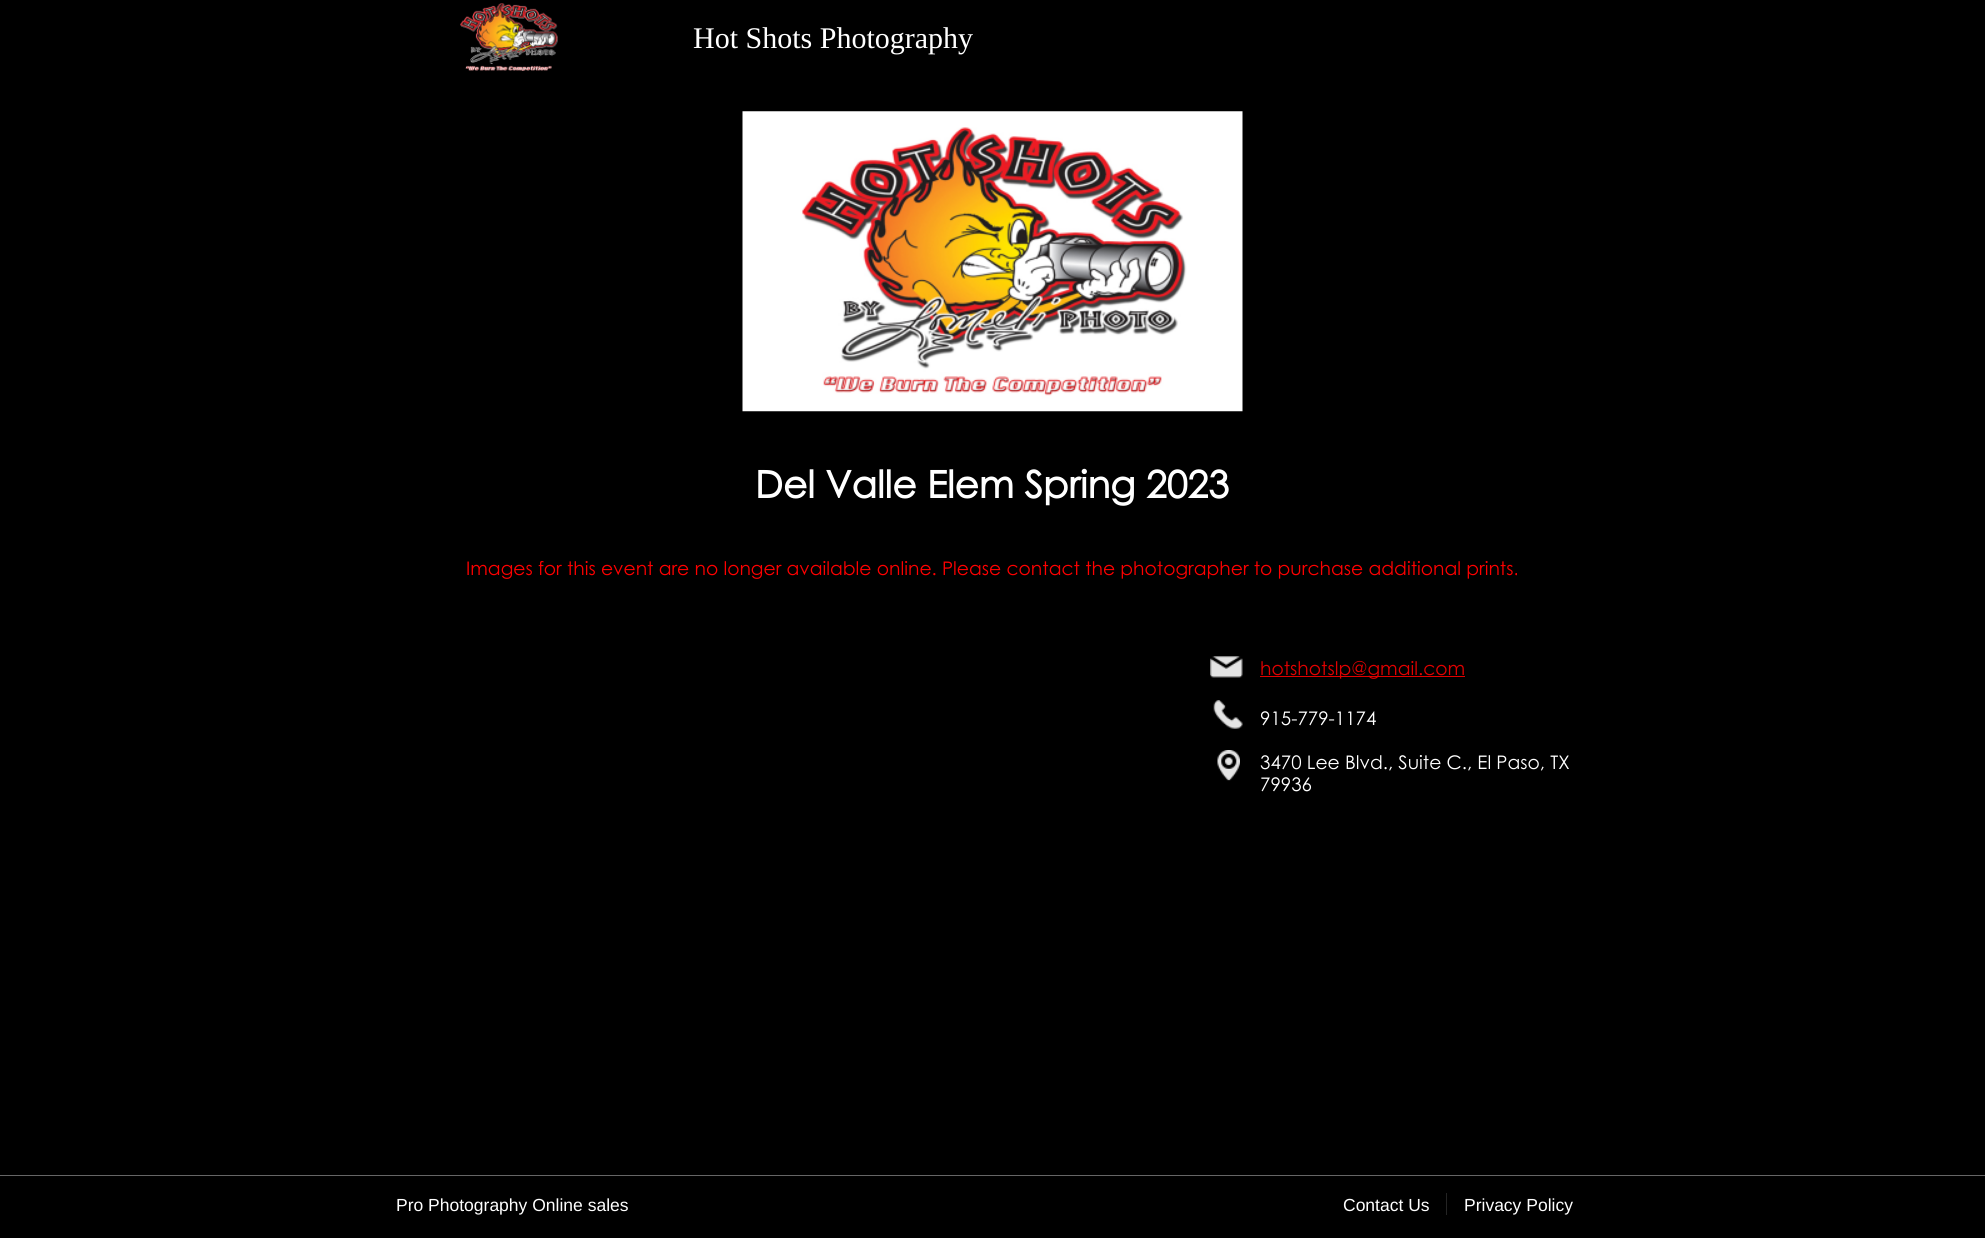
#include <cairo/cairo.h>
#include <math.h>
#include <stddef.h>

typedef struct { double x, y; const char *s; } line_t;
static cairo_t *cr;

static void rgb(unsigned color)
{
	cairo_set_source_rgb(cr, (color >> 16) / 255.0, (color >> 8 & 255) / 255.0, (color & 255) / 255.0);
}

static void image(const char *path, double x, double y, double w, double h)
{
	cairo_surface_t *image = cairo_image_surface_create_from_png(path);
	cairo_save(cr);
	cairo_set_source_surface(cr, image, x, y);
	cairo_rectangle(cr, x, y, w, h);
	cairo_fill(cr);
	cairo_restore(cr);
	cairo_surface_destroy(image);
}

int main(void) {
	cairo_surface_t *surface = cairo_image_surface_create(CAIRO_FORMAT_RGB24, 1985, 1238);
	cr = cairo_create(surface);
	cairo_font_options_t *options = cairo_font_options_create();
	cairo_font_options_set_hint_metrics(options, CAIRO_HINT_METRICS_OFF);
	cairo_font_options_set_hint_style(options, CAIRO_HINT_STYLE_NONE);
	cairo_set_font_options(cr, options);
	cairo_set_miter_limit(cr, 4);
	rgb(0x000000);
	cairo_paint(cr);
	image("img/1.png", 460, 3, 98, 68);
	image("img/2.png", 742, 111, 501, 301);
	image("img/3.png", 1210, 656, 33, 22);
	rgb(0xe20000);
	cairo_rectangle(cr, 1260, 676, 205, 1);
	cairo_fill(cr);
	image("img/4.png", 1213, 700, 30, 29);
	image("img/5.png", 1217, 750, 23, 31);
	rgb(0x666666);
	cairo_rectangle(cr, 0, 1175, 1985, 1);
	cairo_fill(cr);
	rgb(0x242424);
	cairo_rectangle(cr, 1446, 1193, 1, 22);
	cairo_fill(cr);
	cairo_select_font_face(cr, "Liberation Serif", CAIRO_FONT_SLANT_NORMAL, CAIRO_FONT_WEIGHT_NORMAL);
	cairo_set_font_size(cr, 30);
	rgb(0xffffff);
	cairo_move_to(cr, 693, 48);
	cairo_show_text(cr, "Hot Shots Photography");
	cairo_select_font_face(cr, "Century Gothic", CAIRO_FONT_SLANT_NORMAL, CAIRO_FONT_WEIGHT_BOLD);
	cairo_set_font_size(cr, 37.5);
	cairo_move_to(cr, 755, 498);
	cairo_show_text(cr, "Del Valle Elem Spring 2023");
	cairo_select_font_face(cr, "Century Gothic", CAIRO_FONT_SLANT_NORMAL, CAIRO_FONT_WEIGHT_NORMAL);
	cairo_set_font_size(cr, 18.75);
	rgb(0xff0000);
	cairo_move_to(cr, 466, 575);
	cairo_show_text(cr, "Images for this event are no longer available online. Please contact the photographer to purchase additional prints.");
	rgb(0xe20000);
	cairo_move_to(cr, 1260, 675);
	cairo_show_text(cr, "hotshotslp@gmail.com");
	rgb(0xffffff);
	{
		static const line_t items[] = {
			{1260, 725, "915-779-1174"},
			{1260, 769, "3470 Lee Blvd., Suite C., El Paso, TX"},
			{1260, 791, "79936"},
		};
		for (size_t i = 0; i < sizeof items / sizeof *items; i++) {
			cairo_move_to(cr, items[i].x, items[i].y);
			cairo_show_text(cr, items[i].s);
		}
	}
	cairo_select_font_face(cr, "Liberation Sans", CAIRO_FONT_SLANT_NORMAL, CAIRO_FONT_WEIGHT_NORMAL);
	cairo_set_font_size(cr, 17.5);
	{
		static const line_t items[] = {
			{396, 1211, "Pro Photography Online sales"},
			{1343, 1211, "Contact Us"},
			{1464, 1211, "Privacy Policy"},
		};
		for (size_t i = 0; i < sizeof items / sizeof *items; i++) {
			cairo_move_to(cr, items[i].x, items[i].y);
			cairo_show_text(cr, items[i].s);
		}
	}
	cairo_surface_write_to_png(surface, "page.png");
	cairo_font_options_destroy(options);
	cairo_destroy(cr);
	cairo_surface_destroy(surface);
	return 0;
}
